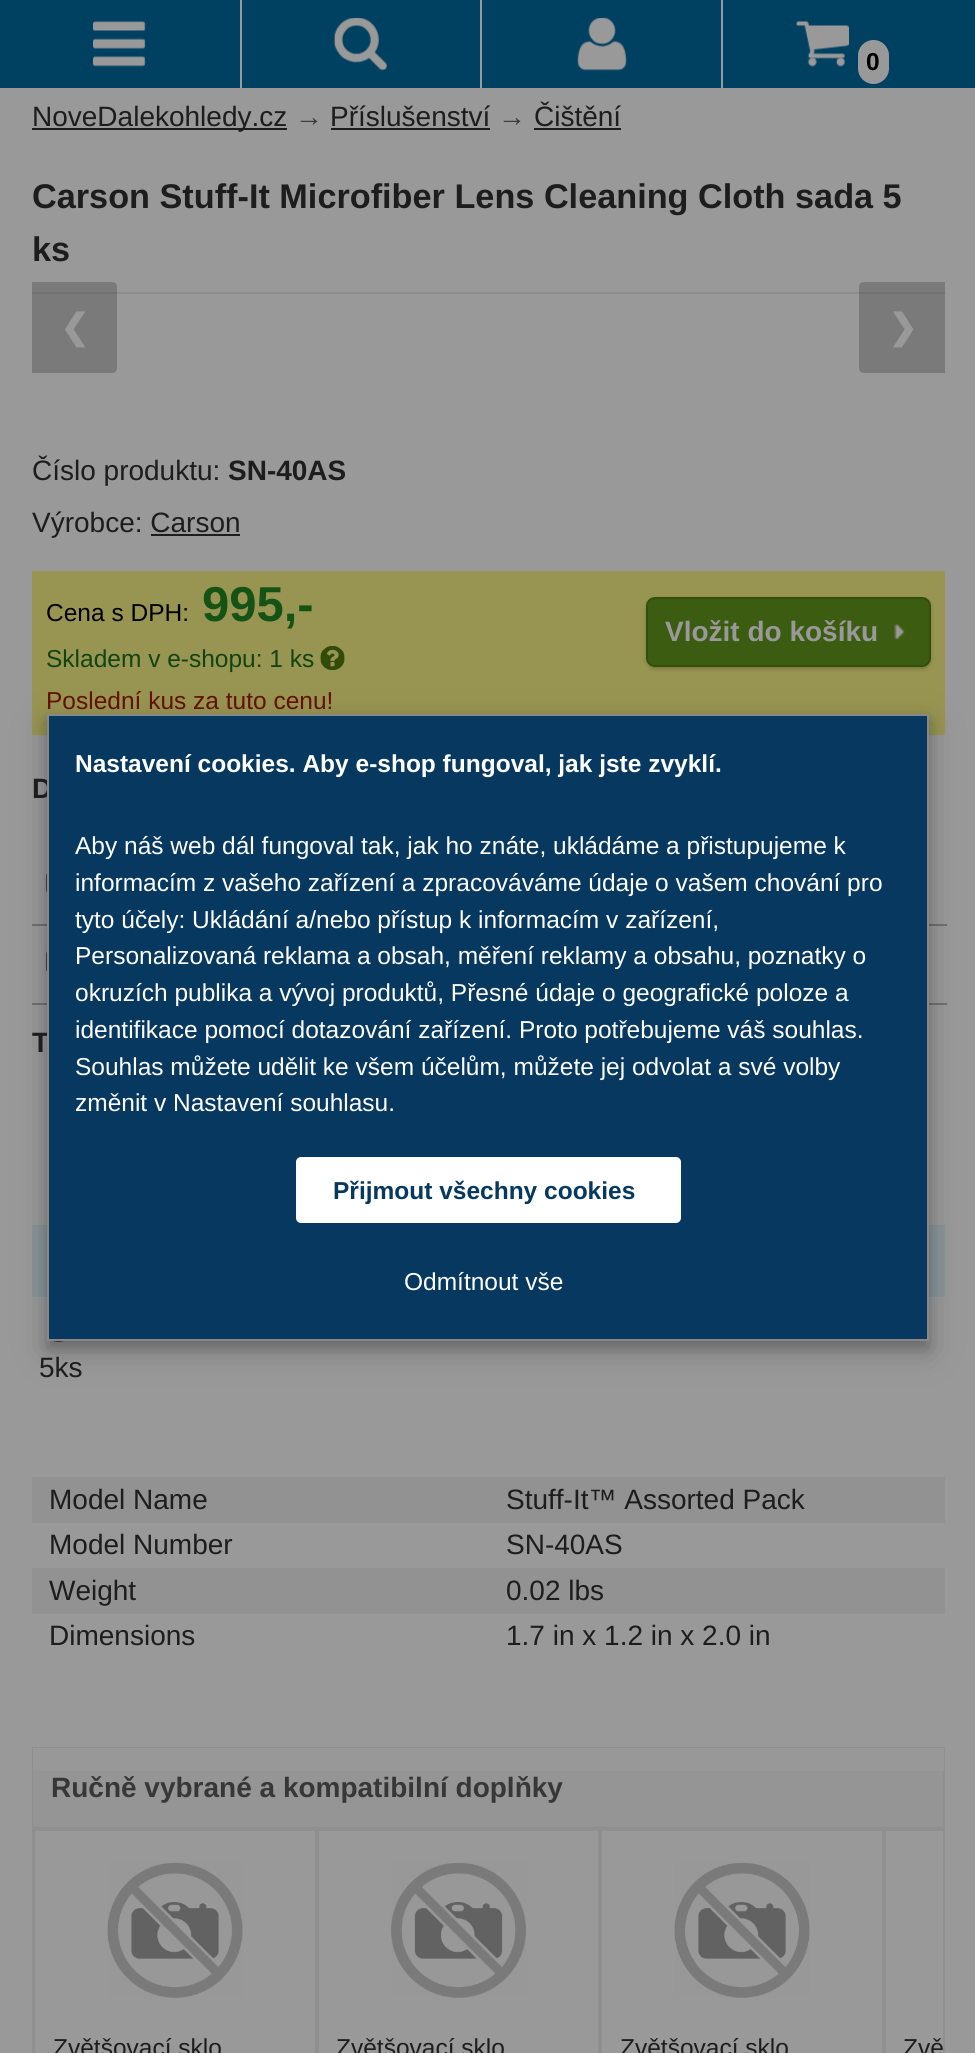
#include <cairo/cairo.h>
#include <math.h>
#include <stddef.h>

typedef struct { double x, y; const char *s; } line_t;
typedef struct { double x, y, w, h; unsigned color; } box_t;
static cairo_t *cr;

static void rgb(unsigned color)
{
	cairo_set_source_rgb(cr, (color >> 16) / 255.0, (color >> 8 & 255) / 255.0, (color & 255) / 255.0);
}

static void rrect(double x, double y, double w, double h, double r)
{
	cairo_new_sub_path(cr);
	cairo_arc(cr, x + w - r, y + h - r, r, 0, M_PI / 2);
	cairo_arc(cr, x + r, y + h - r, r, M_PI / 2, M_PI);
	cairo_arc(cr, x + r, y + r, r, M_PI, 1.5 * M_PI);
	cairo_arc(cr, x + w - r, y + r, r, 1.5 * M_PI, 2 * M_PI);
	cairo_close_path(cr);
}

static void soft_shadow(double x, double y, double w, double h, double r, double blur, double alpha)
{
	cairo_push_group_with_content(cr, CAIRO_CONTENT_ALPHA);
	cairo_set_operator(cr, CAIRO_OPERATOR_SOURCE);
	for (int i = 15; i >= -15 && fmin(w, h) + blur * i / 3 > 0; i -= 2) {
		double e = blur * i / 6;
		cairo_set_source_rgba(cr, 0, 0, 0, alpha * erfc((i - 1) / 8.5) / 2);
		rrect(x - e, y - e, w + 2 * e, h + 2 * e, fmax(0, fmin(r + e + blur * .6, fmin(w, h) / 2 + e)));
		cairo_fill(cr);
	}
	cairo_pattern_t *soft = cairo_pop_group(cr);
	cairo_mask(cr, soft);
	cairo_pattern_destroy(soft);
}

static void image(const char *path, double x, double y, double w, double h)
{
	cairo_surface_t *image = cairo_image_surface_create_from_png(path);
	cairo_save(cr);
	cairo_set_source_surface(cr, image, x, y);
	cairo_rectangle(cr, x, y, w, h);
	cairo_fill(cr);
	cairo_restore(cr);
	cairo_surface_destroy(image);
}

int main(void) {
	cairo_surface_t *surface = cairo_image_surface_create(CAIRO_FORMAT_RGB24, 975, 2053);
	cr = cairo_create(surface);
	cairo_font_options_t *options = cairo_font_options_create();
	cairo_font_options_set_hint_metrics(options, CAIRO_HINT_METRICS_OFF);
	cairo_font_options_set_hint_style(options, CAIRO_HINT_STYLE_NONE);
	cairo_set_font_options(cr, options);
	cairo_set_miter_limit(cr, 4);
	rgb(0x999999);
	cairo_paint(cr);
	rgb(0x004061);
	cairo_rectangle(cr, 0, 0, 975, 88);
	cairo_fill(cr);
	image("img/1.png", 93, 21, 53, 46);
	rgb(0x999999);
	cairo_rectangle(cr, 240, 0, 2, 88);
	cairo_fill(cr);
	image("img/2.png", 333, 18, 54, 53);
	cairo_rectangle(cr, 480, 0, 2, 88);
	cairo_fill(cr);
	image("img/3.png", 577, 18, 50, 53);
	cairo_rectangle(cr, 721, 0, 2, 88);
	cairo_fill(cr);
	image("img/4.png", 796, 21, 53, 46);
	rrect(858, 40, 31, 44, 15.5);
	cairo_fill(cr);
	{
		static const box_t items[] = {
			{32, 128, 255, 2, 0x1d1d1d},
			{331, 128, 159, 2, 0x1d1d1d},
			{534, 128, 87, 2, 0x1d1d1d},
			{32, 292, 913, 2, 0x8e8c8c},
		};
		for (size_t i = 0; i < sizeof items / sizeof *items; i++) {
			rgb(items[i].color);
			cairo_rectangle(cr, items[i].x, items[i].y, items[i].w, items[i].h);
			cairo_fill(cr);
		}
	}
	cairo_set_source_rgba(cr, 0, 0, 0, 0.2);
	cairo_new_path(cr);
	cairo_move_to(cr, 32, 282);
	cairo_line_to(cr, 112, 282);
	cairo_curve_to(cr, 115, 282, 117, 284, 117, 287);
	cairo_line_to(cr, 117, 368);
	cairo_curve_to(cr, 117, 371, 115, 373, 112, 373);
	cairo_line_to(cr, 32, 373);
	cairo_close_path(cr);
	cairo_fill(cr);
	cairo_new_path(cr);
	cairo_move_to(cr, 864, 282);
	cairo_line_to(cr, 945, 282);
	cairo_line_to(cr, 945, 373);
	cairo_line_to(cr, 864, 373);
	cairo_curve_to(cr, 861, 373, 859, 371, 859, 368);
	cairo_line_to(cr, 859, 287);
	cairo_curve_to(cr, 859, 284, 861, 282, 864, 282);
	cairo_close_path(cr);
	cairo_fill(cr);
	rgb(0x1d1d1d);
	cairo_rectangle(cr, 151, 534, 89, 2);
	cairo_fill(cr);
	rgb(0x989552);
	cairo_rectangle(cr, 32, 571, 913, 164);
	cairo_fill(cr);
	image("img/5.png", 320, 646, 25, 24);
	rgb(0x000000);
	soft_shadow(646, 599, 285, 70, 9, 2, 0.2);
	rgb(0x3c5c12);
	rrect(647, 598, 283, 68, 8);
	cairo_fill_preserve(cr);
	rgb(0x324f0b);
	cairo_stroke(cr);
	image("img/6.png", 894, 624, 11, 16);
	rgb(0x707070);
	cairo_rectangle(cr, 32, 924, 915, 2);
	cairo_fill(cr);
	rrect(47, 873, 20, 20, 3);
	rgb(0x474747);
	cairo_stroke(cr);
	rgb(0x707070);
	cairo_rectangle(cr, 32, 1003, 915, 2);
	cairo_fill(cr);
	rrect(47, 951, 20, 21, 3);
	rgb(0x474747);
	cairo_stroke(cr);
	rgb(0x8a9499);
	cairo_rectangle(cr, 32, 1225, 913, 72);
	cairo_fill(cr);
	rrect(48, 1321, 21, 20, 10);
	rgb(0x474747);
	cairo_stroke(cr);
	rgb(0x929292);
	cairo_rectangle(cr, 32, 1477, 913, 46);
	cairo_fill(cr);
	cairo_rectangle(cr, 32, 1568, 913, 46);
	cairo_fill(cr);
	cairo_rectangle(cr, 33, 1748, 911, 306);
	rgb(0x8f8f8f);
	cairo_stroke(cr);
	{
		static const box_t items[] = {
			{33, 1771, 910, 56, 0x959595},
			{33, 1748, 911, 23, 0x989898},
			{33, 1827, 910, 2, 0x8f8f8f},
		};
		for (size_t i = 0; i < sizeof items / sizeof *items; i++) {
			rgb(items[i].color);
			cairo_rectangle(cr, items[i].x, items[i].y, items[i].w, items[i].h);
			cairo_fill(cr);
		}
	}
	cairo_rectangle(cr, 34, 1830, 282, 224);
	cairo_stroke(cr);
	image("img/7.png", 107, 1862, 136, 136);
	cairo_rectangle(cr, 318, 1830, 281, 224);
	cairo_stroke(cr);
	image("img/8.png", 391, 1862, 136, 136);
	cairo_rectangle(cr, 601, 1830, 282, 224);
	cairo_stroke(cr);
	image("img/9.png", 674, 1862, 136, 136);
	cairo_save(cr);
	cairo_rectangle(cr, 33, 1829, 910, 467);
	cairo_clip(cr);
	cairo_rectangle(cr, 885, 1830, 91, 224);
	cairo_stroke(cr);
	cairo_restore(cr);
	rgb(0x000000);
	soft_shadow(47, 725, 882, 626, 0, 17.5, 0.19);
	soft_shadow(47, 721, 882, 627, 0, 7, 0.2);
	cairo_select_font_face(cr, "Liberation Sans", CAIRO_FONT_SLANT_NORMAL, CAIRO_FONT_WEIGHT_BOLD);
	cairo_set_font_size(cr, 24.5);
	rgb(0x000000);
	cairo_move_to(cr, 866, 70);
	cairo_show_text(cr, "0");
	cairo_select_font_face(cr, "Liberation Sans", CAIRO_FONT_SLANT_NORMAL, CAIRO_FONT_WEIGHT_NORMAL);
	cairo_set_font_size(cr, 28);
	rgb(0x1d1d1d);
	cairo_move_to(cr, 32, 126);
	cairo_show_text(cr, "NoveDalekohledy.cz");
	rgb(0x373737);
	cairo_move_to(cr, 295, 126);
	cairo_show_text(cr, "→");
	rgb(0x1d1d1d);
	cairo_move_to(cr, 330, 126);
	cairo_show_text(cr, "Příslušenství");
	rgb(0x373737);
	cairo_move_to(cr, 498, 126);
	cairo_show_text(cr, "→");
	rgb(0x1d1d1d);
	cairo_move_to(cr, 534, 126);
	cairo_show_text(cr, "Čištění");
	cairo_select_font_face(cr, "Liberation Sans", CAIRO_FONT_SLANT_NORMAL, CAIRO_FONT_WEIGHT_BOLD);
	cairo_set_font_size(cr, 34.25);
	cairo_move_to(cr, 32, 208);
	cairo_show_text(cr, "Carson Stuff-It Microfiber Lens Cleaning Cloth sada 5");
	cairo_move_to(cr, 32, 261);
	cairo_show_text(cr, "ks");
	cairo_select_font_face(cr, "DejaVu Sans", CAIRO_FONT_SLANT_NORMAL, CAIRO_FONT_WEIGHT_BOLD);
	cairo_set_font_size(cr, 35);
	rgb(0x999999);
	cairo_move_to(cr, 60, 339);
	cairo_show_text(cr, "❮");
	cairo_move_to(cr, 888, 339);
	cairo_show_text(cr, "❯");
	cairo_select_font_face(cr, "Liberation Sans", CAIRO_FONT_SLANT_NORMAL, CAIRO_FONT_WEIGHT_NORMAL);
	cairo_set_font_size(cr, 28);
	rgb(0x1d1d1d);
	cairo_move_to(cr, 32, 480);
	cairo_show_text(cr, "Číslo produktu:");
	cairo_select_font_face(cr, "Liberation Sans", CAIRO_FONT_SLANT_NORMAL, CAIRO_FONT_WEIGHT_BOLD);
	cairo_move_to(cr, 228, 480);
	cairo_show_text(cr, "SN-40AS");
	cairo_select_font_face(cr, "Liberation Sans", CAIRO_FONT_SLANT_NORMAL, CAIRO_FONT_WEIGHT_NORMAL);
	cairo_move_to(cr, 32, 532);
	cairo_show_text(cr, "Výrobce: Carson");
	cairo_set_font_size(cr, 24.5);
	rgb(0x000000);
	cairo_move_to(cr, 46, 621);
	cairo_show_text(cr, "Cena s DPH:");
	cairo_select_font_face(cr, "Liberation Sans", CAIRO_FONT_SLANT_NORMAL, CAIRO_FONT_WEIGHT_BOLD);
	cairo_set_font_size(cr, 49);
	rgb(0x145314);
	cairo_move_to(cr, 202, 621);
	cairo_show_text(cr, "995,-");
	cairo_select_font_face(cr, "Liberation Sans", CAIRO_FONT_SLANT_NORMAL, CAIRO_FONT_WEIGHT_NORMAL);
	cairo_set_font_size(cr, 24.5);
	rgb(0x104410);
	cairo_move_to(cr, 46, 667);
	cairo_show_text(cr, "Skladem v e-shopu: 1 ks");
	cairo_select_font_face(cr, "Liberation Sans", CAIRO_FONT_SLANT_NORMAL, CAIRO_FONT_WEIGHT_BOLD);
	cairo_set_font_size(cr, 28);
	rgb(0x999999);
	cairo_move_to(cr, 665, 641);
	cairo_show_text(cr, "Vložit do košíku");
	cairo_select_font_face(cr, "Liberation Sans", CAIRO_FONT_SLANT_NORMAL, CAIRO_FONT_WEIGHT_NORMAL);
	cairo_set_font_size(cr, 24.5);
	rgb(0x631000);
	cairo_move_to(cr, 46, 709);
	cairo_show_text(cr, "Poslední kus za tuto cenu!");
	cairo_select_font_face(cr, "Liberation Sans", CAIRO_FONT_SLANT_NORMAL, CAIRO_FONT_WEIGHT_BOLD);
	cairo_set_font_size(cr, 28);
	rgb(0x1d1d1d);
	cairo_move_to(cr, 32, 798);
	cairo_show_text(cr, "D");
	cairo_move_to(cr, 32, 1052);
	cairo_show_text(cr, "T");
	cairo_select_font_face(cr, "Liberation Sans", CAIRO_FONT_SLANT_NORMAL, CAIRO_FONT_WEIGHT_NORMAL);
	{
		static const line_t items[] = {
			{39, 1377, "5ks"},
			{49, 1509, "Model Name"},
			{506, 1509, "Stuff-It™ Assorted Pack"},
			{49, 1554, "Model Number"},
			{506, 1554, "SN-40AS"},
			{49, 1600, "Weight"},
			{506, 1600, "0.02 lbs"},
			{49, 1645, "Dimensions"},
			{506, 1645, "1.7 in x 1.2 in x 2.0 in"},
		};
		for (size_t i = 0; i < sizeof items / sizeof *items; i++) {
			cairo_move_to(cr, items[i].x, items[i].y);
			cairo_show_text(cr, items[i].s);
		}
	}
	cairo_select_font_face(cr, "Liberation Sans", CAIRO_FONT_SLANT_NORMAL, CAIRO_FONT_WEIGHT_BOLD);
	rgb(0x373737);
	cairo_move_to(cr, 51, 1797);
	cairo_show_text(cr, "Ručně vybrané a kompatibilní doplňky");
	cairo_select_font_face(cr, "Liberation Sans", CAIRO_FONT_SLANT_NORMAL, CAIRO_FONT_WEIGHT_NORMAL);
	cairo_set_font_size(cr, 24.5);
	rgb(0x1d1d1d);
	{
		static const line_t items[] = {
			{53, 2056, "Zvětšovací sklo"},
			{336, 2056, "Zvětšovací sklo"},
			{620, 2056, "Zvětšovací sklo"},
			{903, 2056, "Zvě"},
		};
		for (size_t i = 0; i < sizeof items / sizeof *items; i++) {
			cairo_move_to(cr, items[i].x, items[i].y);
			cairo_show_text(cr, items[i].s);
		}
	}
	rgb(0x07385f);
	cairo_rectangle(cr, 48, 715, 880, 625);
	cairo_fill_preserve(cr);
	rgb(0x888888);
	cairo_stroke(cr);
	cairo_select_font_face(cr, "Liberation Sans", CAIRO_FONT_SLANT_NORMAL, CAIRO_FONT_WEIGHT_BOLD);
	rgb(0xffffff);
	cairo_move_to(cr, 75, 772);
	cairo_show_text(cr, "Nastavení cookies. Aby e-shop fungoval, jak jste zvyklí.");
	cairo_select_font_face(cr, "Liberation Sans", CAIRO_FONT_SLANT_NORMAL, CAIRO_FONT_WEIGHT_NORMAL);
	{
		static const line_t items[] = {
			{75, 854, "Aby náš web dál fungoval tak, jak ho znáte, ukládáme a přistupujeme k"},
			{75, 891, "informacím z vašeho zařízení a zpracováváme údaje o vašem chování pro"},
			{75, 928, "tyto účely: Ukládání a/nebo přístup k informacím v zařízení,"},
			{75, 964, "Personalizovaná reklama a obsah, měření reklamy a obsahu, poznatky o"},
			{75, 1001, "okruzích publika a vývoj produktů, Přesné údaje o geografické poloze a"},
			{75, 1038, "identifikace pomocí dotazování zařízení. Proto potřebujeme váš souhlas."},
			{75, 1075, "Souhlas můžete udělit ke všem účelům, můžete jej odvolat a své volby"},
			{75, 1111, "změnit v Nastavení souhlasu."},
		};
		for (size_t i = 0; i < sizeof items / sizeof *items; i++) {
			cairo_move_to(cr, items[i].x, items[i].y);
			cairo_show_text(cr, items[i].s);
		}
	}
	rrect(297, 1158, 383, 64, 4);
	cairo_fill_preserve(cr);
	cairo_stroke(cr);
	cairo_select_font_face(cr, "Liberation Sans", CAIRO_FONT_SLANT_NORMAL, CAIRO_FONT_WEIGHT_BOLD);
	rgb(0x07385f);
	cairo_move_to(cr, 333, 1199);
	cairo_show_text(cr, "Přijmout všechny cookies");
	cairo_select_font_face(cr, "Liberation Sans", CAIRO_FONT_SLANT_NORMAL, CAIRO_FONT_WEIGHT_NORMAL);
	rgb(0xffffff);
	cairo_move_to(cr, 404, 1290);
	cairo_show_text(cr, "Odmítnout vše");
	cairo_surface_write_to_png(surface, "page.png");
	cairo_font_options_destroy(options);
	cairo_destroy(cr);
	cairo_surface_destroy(surface);
	return 0;
}
